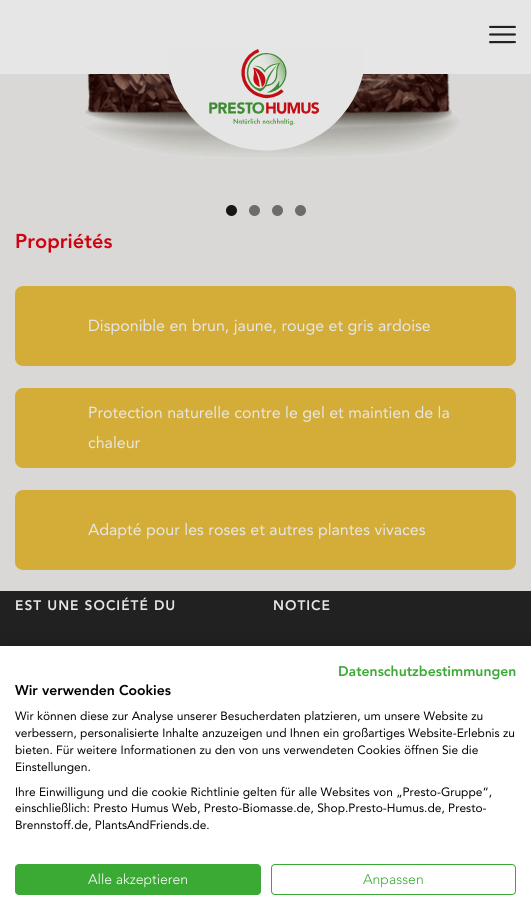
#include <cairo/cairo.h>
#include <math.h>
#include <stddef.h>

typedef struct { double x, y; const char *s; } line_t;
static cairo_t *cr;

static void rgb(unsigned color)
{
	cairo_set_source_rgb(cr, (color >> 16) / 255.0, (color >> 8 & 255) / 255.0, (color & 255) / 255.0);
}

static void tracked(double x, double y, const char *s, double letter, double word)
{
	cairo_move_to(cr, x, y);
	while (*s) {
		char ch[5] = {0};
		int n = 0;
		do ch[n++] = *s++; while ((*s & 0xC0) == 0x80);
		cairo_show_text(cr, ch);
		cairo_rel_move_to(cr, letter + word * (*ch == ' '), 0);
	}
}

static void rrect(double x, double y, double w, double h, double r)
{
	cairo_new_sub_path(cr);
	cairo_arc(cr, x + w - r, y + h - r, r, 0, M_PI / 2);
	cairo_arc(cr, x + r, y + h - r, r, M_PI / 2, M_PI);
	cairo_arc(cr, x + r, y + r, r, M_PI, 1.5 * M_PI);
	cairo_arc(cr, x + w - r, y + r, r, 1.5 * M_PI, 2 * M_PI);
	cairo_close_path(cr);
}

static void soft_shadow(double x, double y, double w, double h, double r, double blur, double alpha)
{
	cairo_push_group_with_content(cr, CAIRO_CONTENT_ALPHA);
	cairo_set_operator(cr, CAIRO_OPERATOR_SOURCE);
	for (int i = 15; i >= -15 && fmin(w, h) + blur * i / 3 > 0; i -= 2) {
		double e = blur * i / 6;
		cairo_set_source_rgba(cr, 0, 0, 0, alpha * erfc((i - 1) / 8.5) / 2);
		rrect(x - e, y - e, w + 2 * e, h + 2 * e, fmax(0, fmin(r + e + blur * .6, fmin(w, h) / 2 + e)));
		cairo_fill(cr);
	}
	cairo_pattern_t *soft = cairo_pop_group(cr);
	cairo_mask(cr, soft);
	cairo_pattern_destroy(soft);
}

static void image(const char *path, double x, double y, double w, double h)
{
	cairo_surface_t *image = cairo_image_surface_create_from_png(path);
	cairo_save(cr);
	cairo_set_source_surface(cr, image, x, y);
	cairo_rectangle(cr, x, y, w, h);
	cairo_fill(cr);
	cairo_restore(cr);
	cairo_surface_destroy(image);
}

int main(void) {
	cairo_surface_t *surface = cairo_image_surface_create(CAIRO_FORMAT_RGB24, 531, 922);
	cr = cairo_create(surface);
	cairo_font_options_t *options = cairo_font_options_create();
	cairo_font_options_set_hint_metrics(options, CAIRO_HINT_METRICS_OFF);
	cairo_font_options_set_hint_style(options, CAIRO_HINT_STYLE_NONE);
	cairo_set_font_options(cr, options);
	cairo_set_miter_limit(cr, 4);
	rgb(0xdad8d7);
	cairo_paint(cr);
	rgb(0xe6e6e6);
	cairo_rectangle(cr, 0, 0, 531, 74);
	cairo_fill(cr);
	image("img/1.png", 489, 25, 27, 19);
	image("img/3.png", 80, 74, 380, 85);
	image("img/2.png", 168, 49, 196, 102);
	rgb(0x161616);
	cairo_arc(cr, 231.5, 210.5, 5.5, 0, 2 * M_PI);
	cairo_fill(cr);
	rgb(0x6d6c6c);
	cairo_arc(cr, 254.5, 210.5, 5.5, 0, 2 * M_PI);
	cairo_fill(cr);
	cairo_arc(cr, 277.5, 210.5, 5.5, 0, 2 * M_PI);
	cairo_fill(cr);
	cairo_arc(cr, 300.5, 210.5, 5.5, 0, 2 * M_PI);
	cairo_fill(cr);
	rgb(0xd4ad39);
	rrect(15, 286, 501, 80, 8);
	cairo_fill(cr);
	rrect(15, 388, 501, 80, 8);
	cairo_fill(cr);
	rrect(15, 490, 501, 80, 8);
	cairo_fill(cr);
	rgb(0x212121);
	cairo_rectangle(cr, 0, 591, 531, 55);
	cairo_fill(cr);
	rgb(0x000000);
	soft_shadow(0, 646, 531, 276, 0, 12, 0.1);
	rgb(0xffffff);
	cairo_rectangle(cr, 0, 646, 531, 276);
	cairo_fill(cr);
	rgb(0x3aaa35);
	rrect(15.5, 864.5, 245, 30, 3.5);
	cairo_fill_preserve(cr);
	cairo_set_line_width(cr, 1);
	cairo_stroke(cr);
	rrect(271.5, 864.5, 244, 30, 3.5);
	cairo_stroke(cr);
	cairo_select_font_face(cr, "Avenir Black", CAIRO_FONT_SLANT_NORMAL, CAIRO_FONT_WEIGHT_NORMAL);
	cairo_set_font_size(cr, 20);
	rgb(0xcc0511);
	cairo_move_to(cr, 15, 248);
	cairo_show_text(cr, "Propriétés");
	cairo_select_font_face(cr, "Avenir", CAIRO_FONT_SLANT_NORMAL, CAIRO_FONT_WEIGHT_NORMAL);
	cairo_set_font_size(cr, 16);
	rgb(0xe6e6e6);
	{
		static const line_t items[] = {
			{88, 331, "Disponible en brun, jaune, rouge et gris ardoise"},
			{88, 418, "Protection naturelle contre le gel et maintien de la"},
			{88, 448, "chaleur"},
			{88, 535, "Adapté pour les roses et autres plantes vivaces"},
		};
		for (size_t i = 0; i < sizeof items / sizeof *items; i++) {
			cairo_move_to(cr, items[i].x, items[i].y);
			cairo_show_text(cr, items[i].s);
		}
	}
	cairo_select_font_face(cr, "Avenir Black", CAIRO_FONT_SLANT_NORMAL, CAIRO_FONT_WEIGHT_NORMAL);
	cairo_set_font_size(cr, 13.75);
	tracked(15, 610, "EST UNE SOCIÉTÉ DU", 1, 0);
	tracked(273, 610, "NOTICE", 1, 0);
	cairo_set_font_size(cr, 14);
	rgb(0x3aaa35);
	cairo_move_to(cr, 338, 676);
	cairo_show_text(cr, "Datenschutzbestimmungen");
	rgb(0x000000);
	cairo_move_to(cr, 15, 695);
	cairo_show_text(cr, "Wir verwenden Cookies");
	cairo_select_font_face(cr, "Avenir", CAIRO_FONT_SLANT_NORMAL, CAIRO_FONT_WEIGHT_NORMAL);
	cairo_set_font_size(cr, 12);
	{
		static const line_t items[] = {
			{15, 720, "Wir können diese zur Analyse unserer Besucherdaten platzieren, um unsere Website zu"},
			{15, 737, "verbessern, personalisierte Inhalte anzuzeigen und Ihnen ein großartiges Website-Erlebnis zu"},
			{15, 754, "bieten. Für weitere Informationen zu den von uns verwendeten Cookies öffnen Sie die"},
			{15, 771, "Einstellungen."},
			{15, 796, "Ihre Einwilligung und die cookie Richtlinie gelten für alle Websites von „Presto-Gruppe“,"},
			{15, 812, "einschließlich: Presto Humus Web, Presto-Biomasse.de, Shop.Presto-Humus.de, Presto-"},
			{15, 829, "Brennstoff.de, PlantsAndFriends.de."},
		};
		for (size_t i = 0; i < sizeof items / sizeof *items; i++) {
			cairo_move_to(cr, items[i].x, items[i].y);
			cairo_show_text(cr, items[i].s);
		}
	}
	cairo_select_font_face(cr, "Avenir Light", CAIRO_FONT_SLANT_NORMAL, CAIRO_FONT_WEIGHT_NORMAL);
	cairo_set_font_size(cr, 14);
	rgb(0xffffff);
	cairo_move_to(cr, 88, 884);
	cairo_show_text(cr, "Alle akzeptieren");
	rgb(0x3aaa35);
	cairo_move_to(cr, 363, 884);
	cairo_show_text(cr, "Anpassen");
	cairo_surface_write_to_png(surface, "page.png");
	cairo_font_options_destroy(options);
	cairo_destroy(cr);
	cairo_surface_destroy(surface);
	return 0;
}
